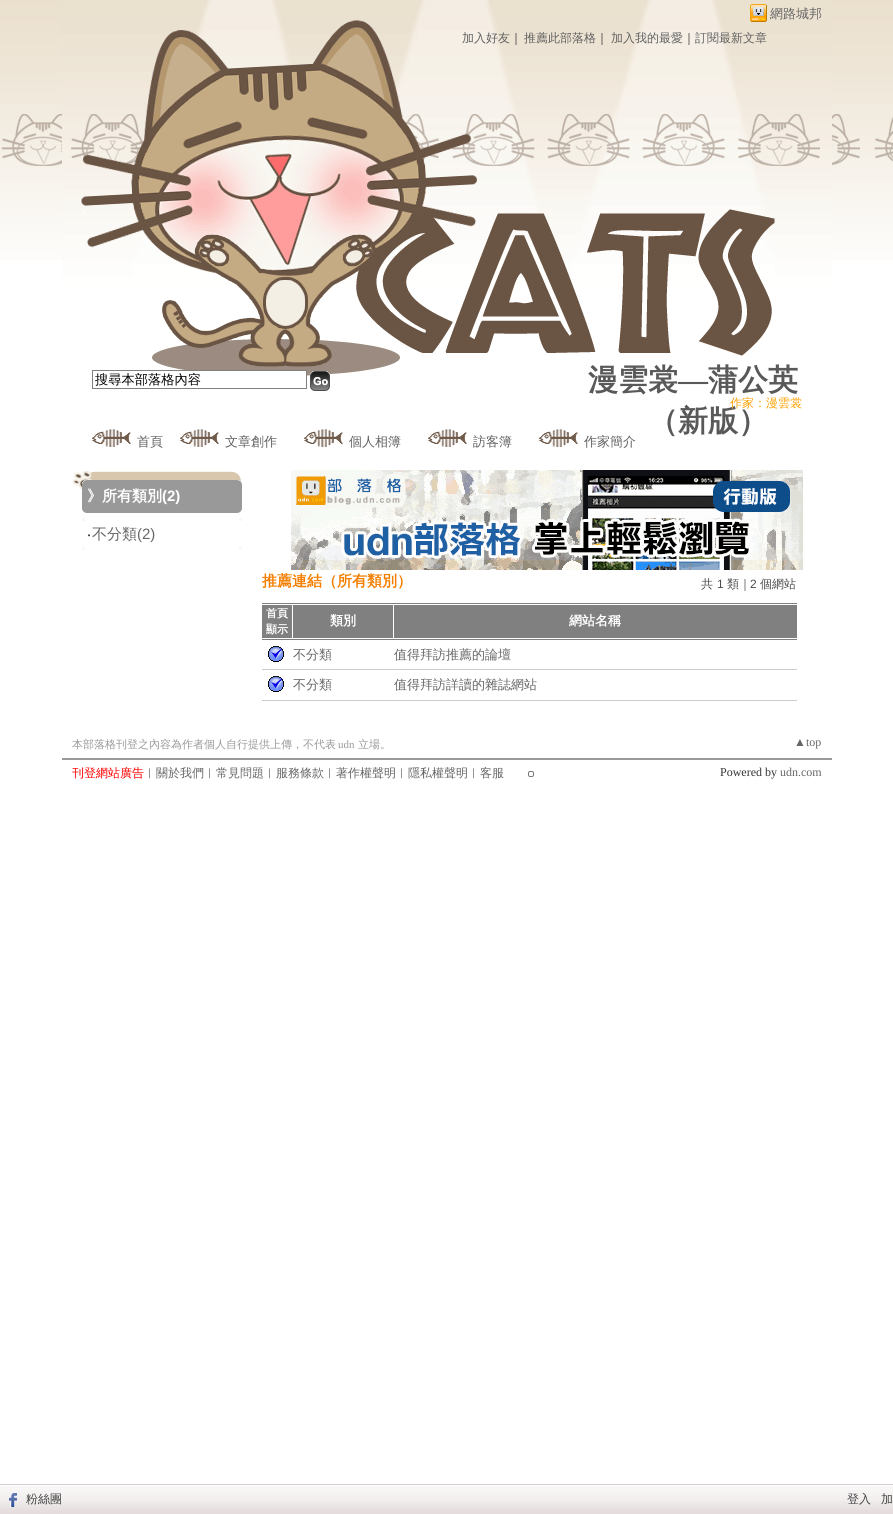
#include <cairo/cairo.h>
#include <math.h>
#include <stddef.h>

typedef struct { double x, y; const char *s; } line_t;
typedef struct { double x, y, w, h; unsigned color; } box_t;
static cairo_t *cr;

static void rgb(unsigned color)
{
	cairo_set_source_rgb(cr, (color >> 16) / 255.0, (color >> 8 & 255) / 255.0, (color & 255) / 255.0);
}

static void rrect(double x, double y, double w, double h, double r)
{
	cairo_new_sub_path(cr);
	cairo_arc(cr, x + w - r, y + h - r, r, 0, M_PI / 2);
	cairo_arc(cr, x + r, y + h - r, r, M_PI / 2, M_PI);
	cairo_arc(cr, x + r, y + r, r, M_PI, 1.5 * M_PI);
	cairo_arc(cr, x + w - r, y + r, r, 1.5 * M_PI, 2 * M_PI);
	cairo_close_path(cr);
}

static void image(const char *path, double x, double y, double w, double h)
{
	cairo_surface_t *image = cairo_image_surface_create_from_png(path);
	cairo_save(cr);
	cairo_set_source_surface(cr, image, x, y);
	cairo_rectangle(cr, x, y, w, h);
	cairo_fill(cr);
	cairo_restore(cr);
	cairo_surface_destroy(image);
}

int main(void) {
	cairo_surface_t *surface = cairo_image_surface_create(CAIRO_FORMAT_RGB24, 893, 1514);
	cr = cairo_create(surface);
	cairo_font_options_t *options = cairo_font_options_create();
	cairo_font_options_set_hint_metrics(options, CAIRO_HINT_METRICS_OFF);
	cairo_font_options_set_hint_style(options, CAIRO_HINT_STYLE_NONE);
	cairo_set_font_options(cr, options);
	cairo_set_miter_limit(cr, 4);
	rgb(0xffffff);
	cairo_paint(cr);
	image("img/1.png", 0, 0, 893, 260);
	image("img/3.png", 62, 0, 770, 376);
	image("img/2.png", 750, 4, 17, 18);
	rgb(0xffffff);
	cairo_rectangle(cr, 192, 371, 114, 5);
	cairo_fill(cr);
	cairo_rectangle(cr, 92.5, 370.5, 214, 18);
	rgb(0x808080);
	cairo_set_line_width(cr, 1);
	cairo_stroke(cr);
	image("img/4.png", 310, 371, 20, 20);
	image("img/5.png", 92, 429, 39, 18);
	image("img/6.png", 180, 429, 39, 18);
	image("img/5.png", 304, 429, 39, 18);
	image("img/5.png", 428, 429, 39, 18);
	image("img/6.png", 539, 429, 39, 18);
	image("img/7.png", 72, 470, 169, 23);
	image("img/8.png", 82, 480, 5, 5);
	rgb(0x999999);
	cairo_rectangle(cr, 87, 480, 150, 5);
	cairo_fill(cr);
	image("img/9.png", 237, 480, 5, 5);
	cairo_rectangle(cr, 82, 485, 160, 23);
	cairo_fill(cr);
	image("img/10.png", 82, 508, 5, 5);
	cairo_rectangle(cr, 87, 508, 150, 5);
	cairo_fill(cr);
	image("img/11.png", 237, 508, 5, 5);
	{
		static const box_t items[] = {
			{82, 518, 3, 3, 0xf8f8f8},
			{239, 518, 3, 3, 0xf8f8f8},
			{82, 547, 3, 3, 0xf8f8f8},
			{239, 547, 3, 3, 0xf8f8f8},
		};
		for (size_t i = 0; i < sizeof items / sizeof *items; i++) {
			rgb(items[i].color);
			cairo_rectangle(cr, items[i].x, items[i].y, items[i].w, items[i].h);
			cairo_fill(cr);
		}
	}
	image("img/12.png", 291, 470, 512, 100);
	{
		static const box_t items[] = {
			{262, 603, 535, 37, 0x808080},
			{262, 604, 535, 1, 0xffffff},
			{292, 605, 1, 33, 0xffffff},
			{393, 605, 1, 33, 0xffffff},
			{262, 638, 535, 1, 0xffffff},
		};
		for (size_t i = 0; i < sizeof items / sizeof *items; i++) {
			rgb(items[i].color);
			cairo_rectangle(cr, items[i].x, items[i].y, items[i].w, items[i].h);
			cairo_fill(cr);
		}
	}
	image("img/13.png", 268, 646, 16, 16);
	rgb(0xcccccc);
	cairo_rectangle(cr, 262, 669, 535, 1);
	cairo_fill(cr);
	image("img/13.png", 268, 676, 16, 16);
	cairo_rectangle(cr, 262, 700, 535, 1);
	cairo_fill(cr);
	rgb(0x999999);
	cairo_rectangle(cr, 62, 758, 770, 2);
	cairo_fill(cr);
	rrect(528.5, 771.5, 5, 5, 1.5);
	rgb(0x767676);
	cairo_stroke(cr);
	image("img/14.png", 0, 1484, 893, 30);
	image("img/15.png", 9, 1493, 8, 14);
	cairo_select_font_face(cr, "WenQuanYi Zen Hei Medium", CAIRO_FONT_SLANT_NORMAL, CAIRO_FONT_WEIGHT_NORMAL);
	cairo_set_font_size(cr, 13);
	rgb(0x666666);
	cairo_move_to(cr, 770, 18);
	cairo_show_text(cr, "網路城邦");
	cairo_set_font_size(cr, 12);
	rgb(0x606060);
	cairo_move_to(cr, 462, 42);
	cairo_show_text(cr, "加入好友");
	rgb(0x333333);
	cairo_move_to(cr, 510, 42);
	cairo_show_text(cr, "｜");
	rgb(0x606060);
	cairo_move_to(cr, 524, 42);
	cairo_show_text(cr, "推薦此部落格");
	rgb(0x333333);
	cairo_move_to(cr, 596, 42);
	cairo_show_text(cr, "｜");
	rgb(0x606060);
	cairo_move_to(cr, 611, 42);
	cairo_show_text(cr, "加入我的最愛");
	rgb(0x333333);
	cairo_move_to(cr, 683, 42);
	cairo_show_text(cr, "｜");
	rgb(0x606060);
	cairo_move_to(cr, 695, 42);
	cairo_show_text(cr, "訂閱最新文章");
	cairo_set_font_size(cr, 13.25);
	rgb(0x000000);
	cairo_move_to(cr, 95, 384);
	cairo_show_text(cr, "搜尋本部落格內容");
	cairo_select_font_face(cr, "WenQuanYi Zen Hei", CAIRO_FONT_SLANT_NORMAL, CAIRO_FONT_WEIGHT_BOLD);
	cairo_set_font_size(cr, 30);
	rgb(0x595959);
	cairo_move_to(cr, 588, 390);
	cairo_show_text(cr, "漫雲裳");
	cairo_select_font_face(cr, "Liberation Serif", CAIRO_FONT_SLANT_NORMAL, CAIRO_FONT_WEIGHT_BOLD);
	cairo_move_to(cr, 678, 390);
	cairo_show_text(cr, "—");
	cairo_select_font_face(cr, "WenQuanYi Zen Hei", CAIRO_FONT_SLANT_NORMAL, CAIRO_FONT_WEIGHT_BOLD);
	cairo_move_to(cr, 708, 390);
	cairo_show_text(cr, "蒲公英");
	cairo_move_to(cr, 648, 431);
	cairo_show_text(cr, "（新版）");
	cairo_select_font_face(cr, "WenQuanYi Zen Hei Medium", CAIRO_FONT_SLANT_NORMAL, CAIRO_FONT_WEIGHT_NORMAL);
	cairo_set_font_size(cr, 12);
	rgb(0xffa204);
	cairo_move_to(cr, 730, 407);
	cairo_show_text(cr, "作家：漫雲裳");
	cairo_set_font_size(cr, 13);
	rgb(0x606060);
	{
		static const line_t items[] = {
			{137, 446, "首頁"},
			{225, 446, "文章創作"},
			{349, 446, "個人相簿"},
			{473, 446, "訪客簿"},
			{584, 446, "作家簡介"},
		};
		for (size_t i = 0; i < sizeof items / sizeof *items; i++) {
			cairo_move_to(cr, items[i].x, items[i].y);
			cairo_show_text(cr, items[i].s);
		}
	}
	cairo_select_font_face(cr, "WenQuanYi Zen Hei", CAIRO_FONT_SLANT_NORMAL, CAIRO_FONT_WEIGHT_BOLD);
	cairo_set_font_size(cr, 15);
	rgb(0xffffff);
	cairo_move_to(cr, 87, 501);
	cairo_show_text(cr, "》所有類別");
	cairo_select_font_face(cr, "Liberation Sans", CAIRO_FONT_SLANT_NORMAL, CAIRO_FONT_WEIGHT_BOLD);
	cairo_move_to(cr, 162, 501);
	cairo_show_text(cr, "(2)");
	cairo_select_font_face(cr, "Noto Sans", CAIRO_FONT_SLANT_NORMAL, CAIRO_FONT_WEIGHT_NORMAL);
	rgb(0x333333);
	cairo_move_to(cr, 87, 539);
	cairo_show_text(cr, "‧");
	cairo_select_font_face(cr, "WenQuanYi Zen Hei Medium", CAIRO_FONT_SLANT_NORMAL, CAIRO_FONT_WEIGHT_NORMAL);
	rgb(0x666666);
	cairo_move_to(cr, 92, 539);
	cairo_show_text(cr, "不分類");
	cairo_select_font_face(cr, "Liberation Sans", CAIRO_FONT_SLANT_NORMAL, CAIRO_FONT_WEIGHT_NORMAL);
	cairo_move_to(cr, 137, 539);
	cairo_show_text(cr, "(2)");
	cairo_select_font_face(cr, "WenQuanYi Zen Hei", CAIRO_FONT_SLANT_NORMAL, CAIRO_FONT_WEIGHT_BOLD);
	rgb(0xf47e00);
	cairo_move_to(cr, 262, 586);
	cairo_show_text(cr, "推薦連結（所有類別）");
	cairo_select_font_face(cr, "WenQuanYi Zen Hei Medium", CAIRO_FONT_SLANT_NORMAL, CAIRO_FONT_WEIGHT_NORMAL);
	cairo_set_font_size(cr, 12);
	rgb(0x4d4d4d);
	cairo_move_to(cr, 701, 588);
	cairo_show_text(cr, "共");
	cairo_select_font_face(cr, "Liberation Sans", CAIRO_FONT_SLANT_NORMAL, CAIRO_FONT_WEIGHT_NORMAL);
	cairo_move_to(cr, 717, 588);
	cairo_show_text(cr, "1");
	cairo_select_font_face(cr, "WenQuanYi Zen Hei Medium", CAIRO_FONT_SLANT_NORMAL, CAIRO_FONT_WEIGHT_NORMAL);
	cairo_move_to(cr, 727, 588);
	cairo_show_text(cr, "類｜");
	cairo_select_font_face(cr, "Liberation Sans", CAIRO_FONT_SLANT_NORMAL, CAIRO_FONT_WEIGHT_NORMAL);
	cairo_move_to(cr, 750, 588);
	cairo_show_text(cr, "2");
	cairo_select_font_face(cr, "WenQuanYi Zen Hei Medium", CAIRO_FONT_SLANT_NORMAL, CAIRO_FONT_WEIGHT_NORMAL);
	cairo_move_to(cr, 760, 588);
	cairo_show_text(cr, "個網站");
	cairo_select_font_face(cr, "WenQuanYi Zen Hei", CAIRO_FONT_SLANT_NORMAL, CAIRO_FONT_WEIGHT_BOLD);
	cairo_set_font_size(cr, 11);
	rgb(0xffffff);
	cairo_move_to(cr, 266, 617);
	cairo_show_text(cr, "首頁");
	cairo_move_to(cr, 266, 633);
	cairo_show_text(cr, "顯示");
	cairo_set_font_size(cr, 13);
	cairo_move_to(cr, 330, 625);
	cairo_show_text(cr, "類別");
	cairo_move_to(cr, 569, 625);
	cairo_show_text(cr, "網站名稱");
	cairo_select_font_face(cr, "WenQuanYi Zen Hei Medium", CAIRO_FONT_SLANT_NORMAL, CAIRO_FONT_WEIGHT_NORMAL);
	rgb(0x666666);
	{
		static const line_t items[] = {
			{293, 659, "不分類"},
			{394, 659, "值得拜訪推薦的論壇"},
			{293, 689, "不分類"},
			{394, 689, "值得拜訪詳讀的雜誌網站"},
		};
		for (size_t i = 0; i < sizeof items / sizeof *items; i++) {
			cairo_move_to(cr, items[i].x, items[i].y);
			cairo_show_text(cr, items[i].s);
		}
	}
	cairo_set_font_size(cr, 11);
	rgb(0x999999);
	cairo_move_to(cr, 72, 748);
	cairo_show_text(cr, "本部落格刊登之內容為作者個人自行提供上傳，不代表");
	cairo_select_font_face(cr, "Liberation Serif", CAIRO_FONT_SLANT_NORMAL, CAIRO_FONT_WEIGHT_NORMAL);
	cairo_move_to(cr, 338, 748);
	cairo_show_text(cr, "udn");
	cairo_select_font_face(cr, "WenQuanYi Zen Hei Medium", CAIRO_FONT_SLANT_NORMAL, CAIRO_FONT_WEIGHT_NORMAL);
	cairo_move_to(cr, 358, 748);
	cairo_show_text(cr, "立場。");
	cairo_select_font_face(cr, "Liberation Serif", CAIRO_FONT_SLANT_NORMAL, CAIRO_FONT_WEIGHT_NORMAL);
	cairo_set_font_size(cr, 12);
	rgb(0x666666);
	cairo_move_to(cr, 794, 746);
	cairo_show_text(cr, "▲top");
	cairo_select_font_face(cr, "WenQuanYi Zen Hei Medium", CAIRO_FONT_SLANT_NORMAL, CAIRO_FONT_WEIGHT_NORMAL);
	rgb(0xff0000);
	cairo_move_to(cr, 72, 777);
	cairo_show_text(cr, "刊登網站廣告");
	rgb(0x333333);
	cairo_move_to(cr, 144, 777);
	cairo_show_text(cr, "︱");
	rgb(0x666666);
	cairo_move_to(cr, 156, 777);
	cairo_show_text(cr, "關於我們");
	rgb(0x333333);
	cairo_move_to(cr, 204, 777);
	cairo_show_text(cr, "︱");
	rgb(0x666666);
	cairo_move_to(cr, 216, 777);
	cairo_show_text(cr, "常見問題");
	rgb(0x333333);
	cairo_move_to(cr, 264, 777);
	cairo_show_text(cr, "︱");
	rgb(0x666666);
	cairo_move_to(cr, 276, 777);
	cairo_show_text(cr, "服務條款");
	rgb(0x333333);
	cairo_move_to(cr, 324, 777);
	cairo_show_text(cr, "︱");
	rgb(0x666666);
	cairo_move_to(cr, 336, 777);
	cairo_show_text(cr, "著作權聲明");
	rgb(0x333333);
	cairo_move_to(cr, 396, 777);
	cairo_show_text(cr, "︱");
	rgb(0x666666);
	cairo_move_to(cr, 408, 777);
	cairo_show_text(cr, "隱私權聲明");
	rgb(0x333333);
	cairo_move_to(cr, 468, 777);
	cairo_show_text(cr, "︱");
	rgb(0x666666);
	cairo_move_to(cr, 480, 777);
	cairo_show_text(cr, "客服");
	cairo_select_font_face(cr, "Liberation Serif", CAIRO_FONT_SLANT_NORMAL, CAIRO_FONT_WEIGHT_NORMAL);
	rgb(0x333333);
	cairo_move_to(cr, 720, 776);
	cairo_show_text(cr, "Powered by");
	rgb(0x666666);
	cairo_move_to(cr, 780, 776);
	cairo_show_text(cr, "udn.com");
	cairo_select_font_face(cr, "WenQuanYi Zen Hei Medium", CAIRO_FONT_SLANT_NORMAL, CAIRO_FONT_WEIGHT_NORMAL);
	rgb(0x444444);
	{
		static const line_t items[] = {
			{26, 1503, "粉絲團"},
			{847, 1503, "登入"},
			{881, 1503, "加"},
		};
		for (size_t i = 0; i < sizeof items / sizeof *items; i++) {
			cairo_move_to(cr, items[i].x, items[i].y);
			cairo_show_text(cr, items[i].s);
		}
	}
	cairo_surface_write_to_png(surface, "page.png");
	cairo_font_options_destroy(options);
	cairo_destroy(cr);
	cairo_surface_destroy(surface);
	return 0;
}
